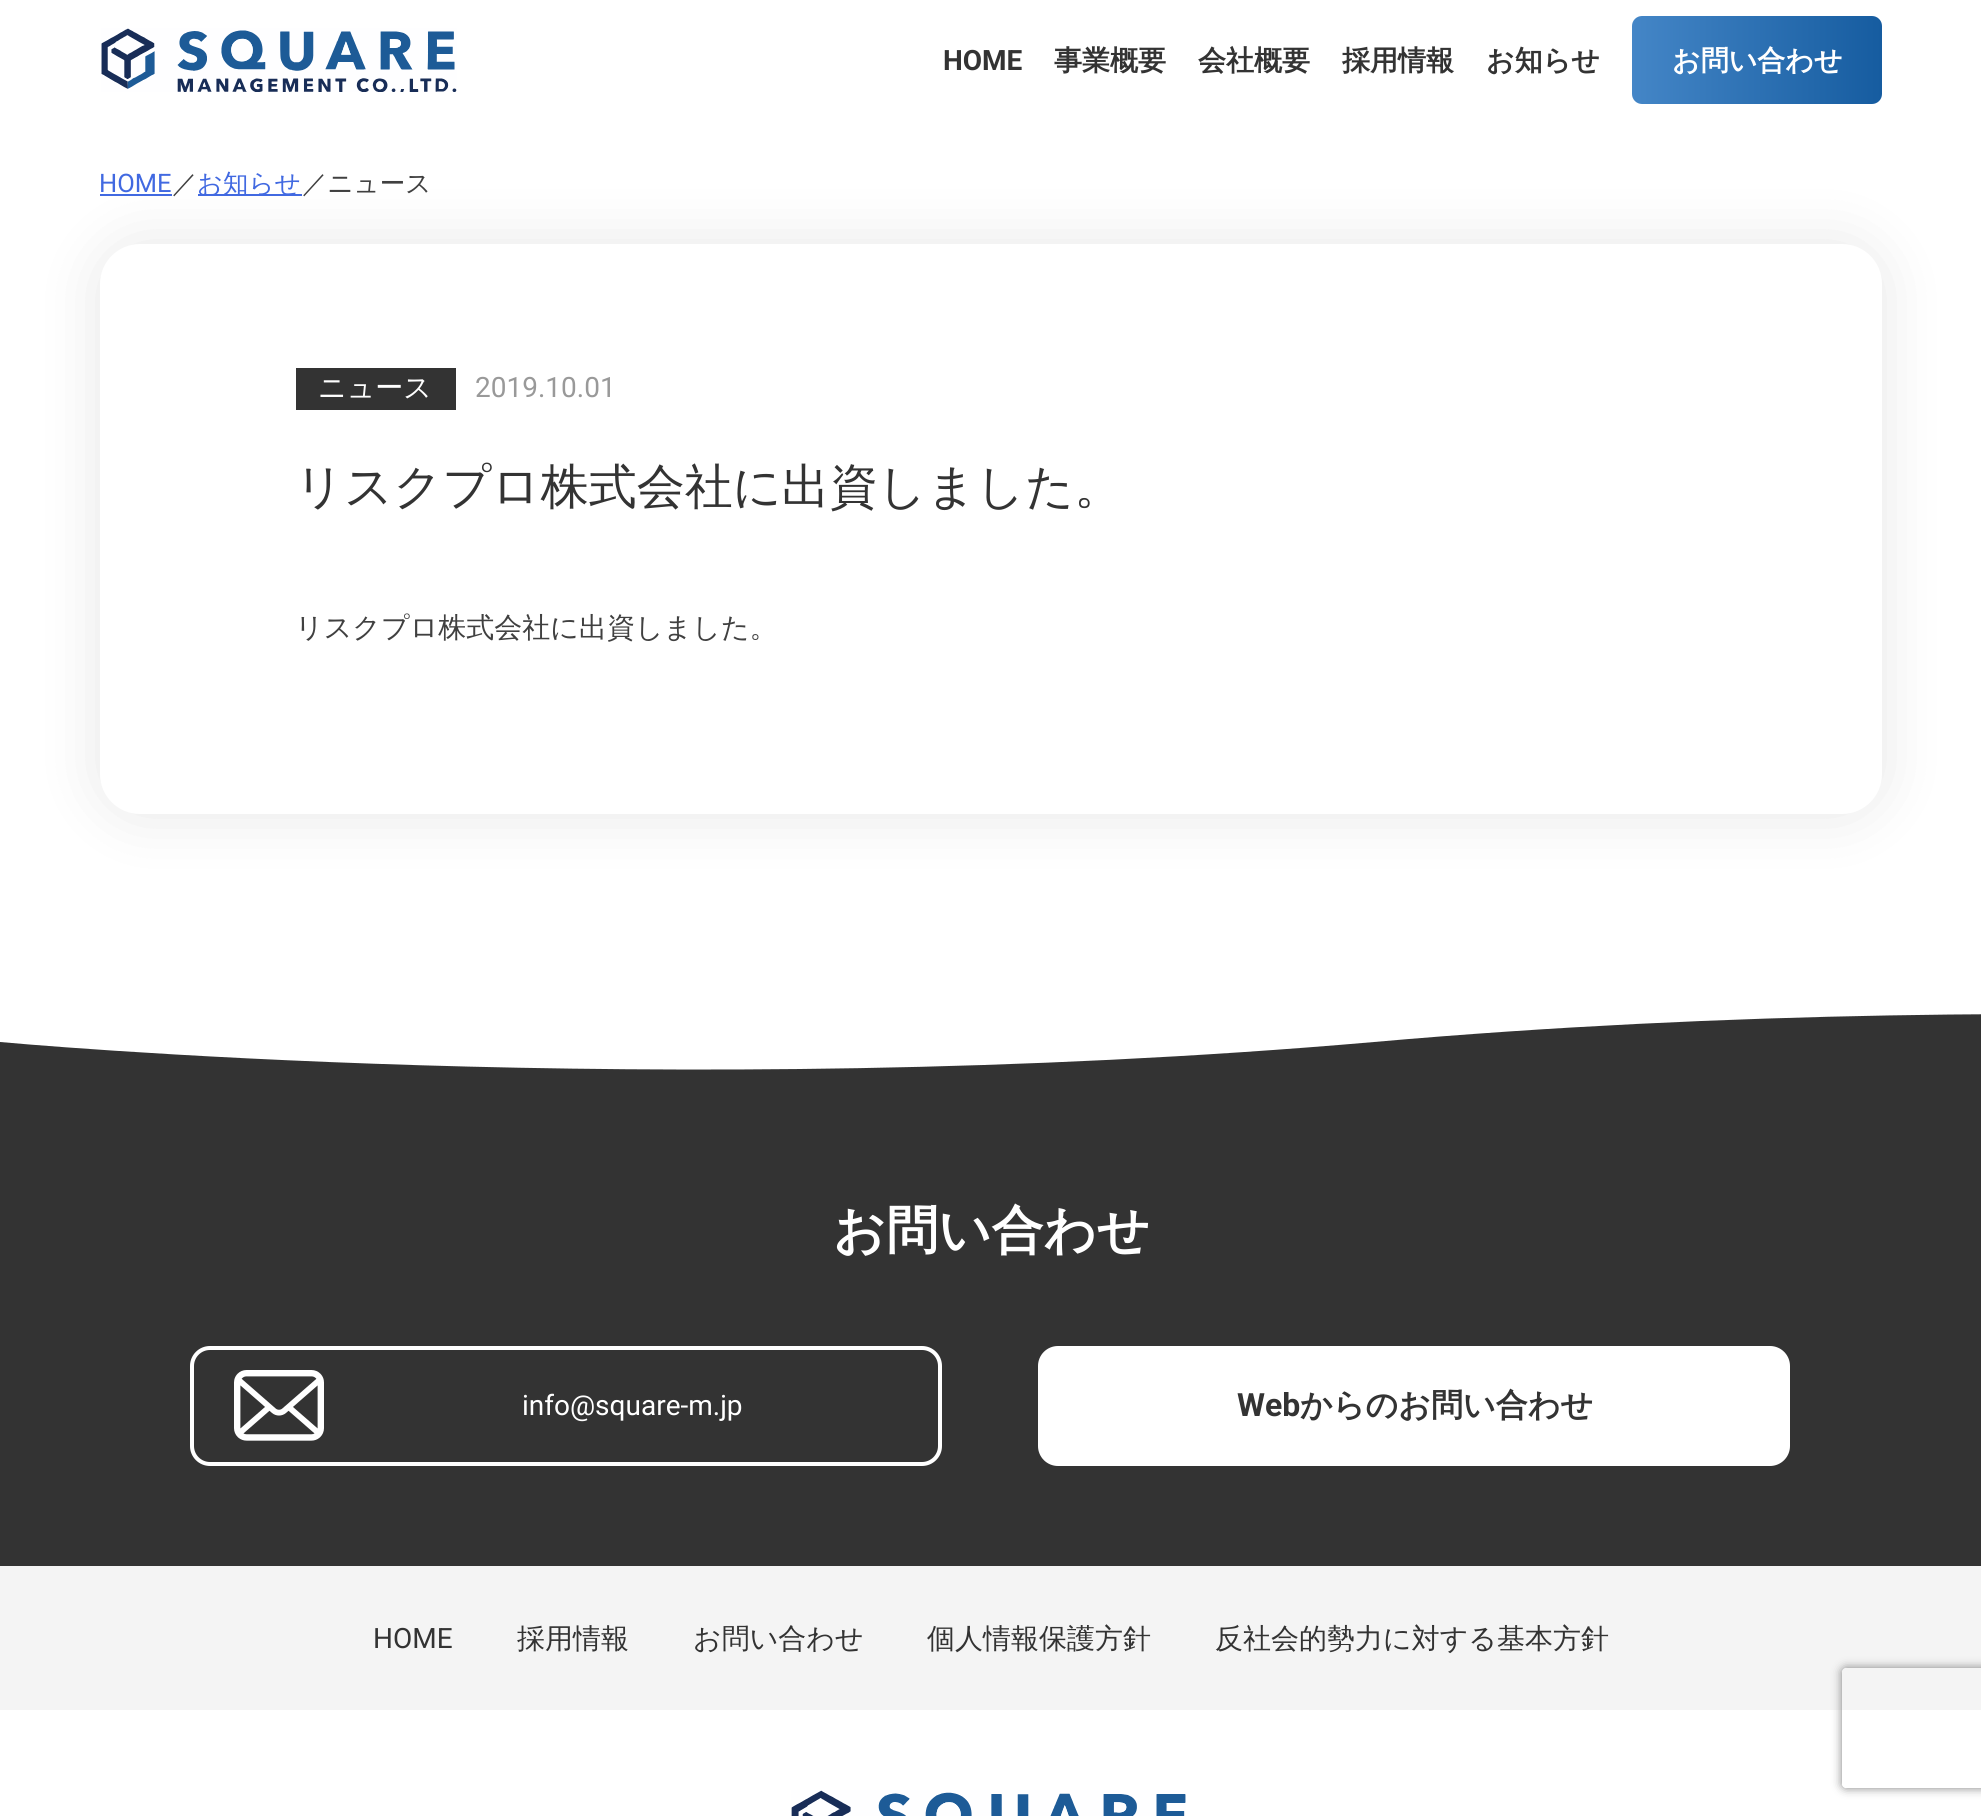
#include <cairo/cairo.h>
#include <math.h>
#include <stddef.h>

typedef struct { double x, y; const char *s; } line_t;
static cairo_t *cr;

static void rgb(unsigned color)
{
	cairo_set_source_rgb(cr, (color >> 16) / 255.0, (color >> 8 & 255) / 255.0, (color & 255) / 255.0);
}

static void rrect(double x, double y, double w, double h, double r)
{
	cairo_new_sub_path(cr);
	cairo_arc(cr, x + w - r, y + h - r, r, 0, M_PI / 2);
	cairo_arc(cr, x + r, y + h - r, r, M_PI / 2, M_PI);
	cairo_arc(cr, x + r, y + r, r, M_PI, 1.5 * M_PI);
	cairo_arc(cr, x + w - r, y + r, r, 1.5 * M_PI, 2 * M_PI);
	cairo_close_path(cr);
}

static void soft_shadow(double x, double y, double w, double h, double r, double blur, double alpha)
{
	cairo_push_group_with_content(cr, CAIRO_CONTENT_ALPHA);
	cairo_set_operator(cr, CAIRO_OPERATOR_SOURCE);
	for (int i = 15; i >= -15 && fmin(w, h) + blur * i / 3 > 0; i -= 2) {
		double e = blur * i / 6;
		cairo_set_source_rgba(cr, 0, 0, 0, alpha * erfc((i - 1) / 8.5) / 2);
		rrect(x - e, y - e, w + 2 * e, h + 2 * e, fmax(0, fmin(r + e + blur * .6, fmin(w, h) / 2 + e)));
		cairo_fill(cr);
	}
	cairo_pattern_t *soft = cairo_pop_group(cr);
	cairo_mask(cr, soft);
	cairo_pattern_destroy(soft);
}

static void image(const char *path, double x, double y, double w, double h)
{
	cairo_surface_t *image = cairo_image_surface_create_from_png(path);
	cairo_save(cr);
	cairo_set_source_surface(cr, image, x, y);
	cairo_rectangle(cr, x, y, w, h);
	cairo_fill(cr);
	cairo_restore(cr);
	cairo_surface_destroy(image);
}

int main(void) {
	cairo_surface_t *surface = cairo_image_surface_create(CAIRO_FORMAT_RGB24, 1981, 1816);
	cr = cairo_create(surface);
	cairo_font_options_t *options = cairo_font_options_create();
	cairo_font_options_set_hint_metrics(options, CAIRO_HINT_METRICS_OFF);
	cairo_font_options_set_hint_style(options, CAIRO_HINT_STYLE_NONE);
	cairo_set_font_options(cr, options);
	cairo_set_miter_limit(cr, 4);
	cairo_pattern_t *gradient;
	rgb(0xffffff);
	cairo_paint(cr);
	image("img/1.png", 101, 28, 356, 64);
	gradient = cairo_pattern_create_linear(1632, 60, 1882, 60);
	cairo_pattern_add_color_stop_rgba(gradient, 0, 0.267, 0.525, 0.78, 1);
	cairo_pattern_add_color_stop_rgba(gradient, 1, 0.086, 0.361, 0.627, 1);
	cairo_set_source(cr, gradient);
	cairo_pattern_destroy(gradient);
	rrect(1632, 16, 250, 88, 10);
	cairo_fill(cr);
	rgb(0x000000);
	soft_shadow(100, 244, 1782, 570, 40, 30, 0.1);
	rgb(0x4169e1);
	cairo_rectangle(cr, 100, 194, 72, 2);
	cairo_fill(cr);
	cairo_rectangle(cr, 198, 194, 104, 2);
	cairo_fill(cr);
	rgb(0xffffff);
	rrect(100, 244, 1782, 570, 40);
	cairo_fill(cr);
	rgb(0x333333);
	cairo_rectangle(cr, 296, 368, 160, 42);
	cairo_fill(cr);
	cairo_new_path(cr);
	cairo_move_to(cr, 0, 1042);
	cairo_curve_to(cr, 0, 1042, 662, 1104, 1374, 1042);
	cairo_curve_to(cr, 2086, 979, 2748, 1042, 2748, 1042);
	cairo_line_to(cr, 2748, 1188);
	cairo_line_to(cr, 0, 1188);
	cairo_close_path(cr);
	cairo_fill(cr);
	cairo_rectangle(cr, 0, 1188, 1981, 378);
	cairo_fill(cr);
	rrect(192, 1348, 748, 116, 18);
	rgb(0xffffff);
	cairo_set_line_width(cr, 4);
	cairo_stroke(cr);
	image("img/2.png", 234, 1370, 90, 71);
	rrect(1038, 1346, 752, 120, 20);
	cairo_fill(cr);
	rgb(0xf4f4f4);
	cairo_rectangle(cr, 0, 1566, 1981, 144);
	cairo_fill(cr);
	image("img/3.png", 791, 1790, 395, 26);
	cairo_save(cr);
	cairo_set_fill_rule(cr, CAIRO_FILL_RULE_EVEN_ODD);
	cairo_new_path(cr);
	cairo_move_to(cr, 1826, 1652);
	cairo_line_to(cr, 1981, 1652);
	cairo_line_to(cr, 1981, 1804);
	cairo_line_to(cr, 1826, 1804);
	cairo_close_path(cr);
	cairo_move_to(cr, 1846, 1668);
	cairo_line_to(cr, 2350, 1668);
	cairo_curve_to(cr, 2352, 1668, 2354, 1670, 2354, 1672);
	cairo_line_to(cr, 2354, 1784);
	cairo_curve_to(cr, 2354, 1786, 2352, 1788, 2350, 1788);
	cairo_line_to(cr, 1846, 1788);
	cairo_curve_to(cr, 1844, 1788, 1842, 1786, 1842, 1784);
	cairo_line_to(cr, 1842, 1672);
	cairo_curve_to(cr, 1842, 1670, 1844, 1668, 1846, 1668);
	cairo_close_path(cr);
	cairo_clip(cr);
	rgb(0x808080);
	soft_shadow(1842, 1668, 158, 120, 4, 5, 1);
	cairo_restore(cr);
	cairo_select_font_face(cr, "Roboto", CAIRO_FONT_SLANT_NORMAL, CAIRO_FONT_WEIGHT_BOLD);
	cairo_set_font_size(cr, 28);
	rgb(0x333333);
	cairo_move_to(cr, 943, 70);
	cairo_show_text(cr, "HOME");
	cairo_select_font_face(cr, "WenQuanYi Zen Hei", CAIRO_FONT_SLANT_NORMAL, CAIRO_FONT_WEIGHT_BOLD);
	{
		static const line_t items[] = {
			{1054, 70, "事業概要"},
			{1198, 70, "会社概要"},
			{1342, 70, "採用情報"},
			{1486, 70, "お知らせ"},
		};
		for (size_t i = 0; i < sizeof items / sizeof *items; i++) {
			cairo_move_to(cr, items[i].x, items[i].y);
			cairo_show_text(cr, items[i].s);
		}
	}
	rgb(0xffffff);
	cairo_move_to(cr, 1672, 70);
	cairo_show_text(cr, "お問い合わせ");
	cairo_select_font_face(cr, "Roboto", CAIRO_FONT_SLANT_NORMAL, CAIRO_FONT_WEIGHT_NORMAL);
	cairo_set_font_size(cr, 25.5);
	rgb(0x4169e1);
	cairo_move_to(cr, 99, 192);
	cairo_show_text(cr, "HOME");
	cairo_select_font_face(cr, "WenQuanYi Zen Hei Medium", CAIRO_FONT_SLANT_NORMAL, CAIRO_FONT_WEIGHT_NORMAL);
	rgb(0x404040);
	cairo_move_to(cr, 172, 192);
	cairo_show_text(cr, "／");
	rgb(0x4169e1);
	cairo_move_to(cr, 197, 192);
	cairo_show_text(cr, "お知らせ");
	rgb(0x404040);
	cairo_move_to(cr, 302, 192);
	cairo_show_text(cr, "／ニュース");
	cairo_set_font_size(cr, 28);
	rgb(0xffffff);
	cairo_move_to(cr, 318, 397);
	cairo_show_text(cr, "ニュース");
	cairo_select_font_face(cr, "Roboto", CAIRO_FONT_SLANT_NORMAL, CAIRO_FONT_WEIGHT_NORMAL);
	rgb(0x999999);
	cairo_move_to(cr, 475, 397);
	cairo_show_text(cr, "2019.10.01");
	cairo_select_font_face(cr, "WenQuanYi Zen Hei Medium", CAIRO_FONT_SLANT_NORMAL, CAIRO_FONT_WEIGHT_NORMAL);
	cairo_set_font_size(cr, 48);
	rgb(0x333333);
	cairo_move_to(cr, 295, 503);
	cairo_show_text(cr, "リスクプロ株式会社に出資しました。");
	cairo_set_font_size(cr, 28);
	rgb(0x404040);
	cairo_move_to(cr, 295, 637);
	cairo_show_text(cr, "リスクプロ株式会社に出資しました。");
	cairo_select_font_face(cr, "WenQuanYi Zen Hei", CAIRO_FONT_SLANT_NORMAL, CAIRO_FONT_WEIGHT_BOLD);
	cairo_set_font_size(cr, 52);
	rgb(0xffffff);
	cairo_move_to(cr, 833, 1248);
	cairo_show_text(cr, "お問い合わせ");
	cairo_select_font_face(cr, "Roboto", CAIRO_FONT_SLANT_NORMAL, CAIRO_FONT_WEIGHT_NORMAL);
	cairo_set_font_size(cr, 28);
	cairo_move_to(cr, 522, 1415);
	cairo_show_text(cr, "info@square-m.jp");
	cairo_select_font_face(cr, "Roboto", CAIRO_FONT_SLANT_NORMAL, CAIRO_FONT_WEIGHT_BOLD);
	cairo_set_font_size(cr, 32);
	rgb(0x333333);
	cairo_move_to(cr, 1237, 1416);
	cairo_show_text(cr, "Web");
	cairo_select_font_face(cr, "WenQuanYi Zen Hei", CAIRO_FONT_SLANT_NORMAL, CAIRO_FONT_WEIGHT_BOLD);
	cairo_move_to(cr, 1300, 1416);
	cairo_show_text(cr, "からのお問い合わせ");
	cairo_select_font_face(cr, "Roboto", CAIRO_FONT_SLANT_NORMAL, CAIRO_FONT_WEIGHT_NORMAL);
	cairo_set_font_size(cr, 28);
	cairo_move_to(cr, 373, 1648);
	cairo_show_text(cr, "HOME");
	cairo_select_font_face(cr, "WenQuanYi Zen Hei Medium", CAIRO_FONT_SLANT_NORMAL, CAIRO_FONT_WEIGHT_NORMAL);
	{
		static const line_t items[] = {
			{517, 1648, "採用情報"},
			{693, 1648, "お問い合わせ"},
			{927, 1648, "個人情報保護方針"},
			{1215, 1648, "反社会的勢力に対する基本方針"},
		};
		for (size_t i = 0; i < sizeof items / sizeof *items; i++) {
			cairo_move_to(cr, items[i].x, items[i].y);
			cairo_show_text(cr, items[i].s);
		}
	}
	cairo_surface_write_to_png(surface, "page.png");
	cairo_font_options_destroy(options);
	cairo_destroy(cr);
	cairo_surface_destroy(surface);
	return 0;
}
